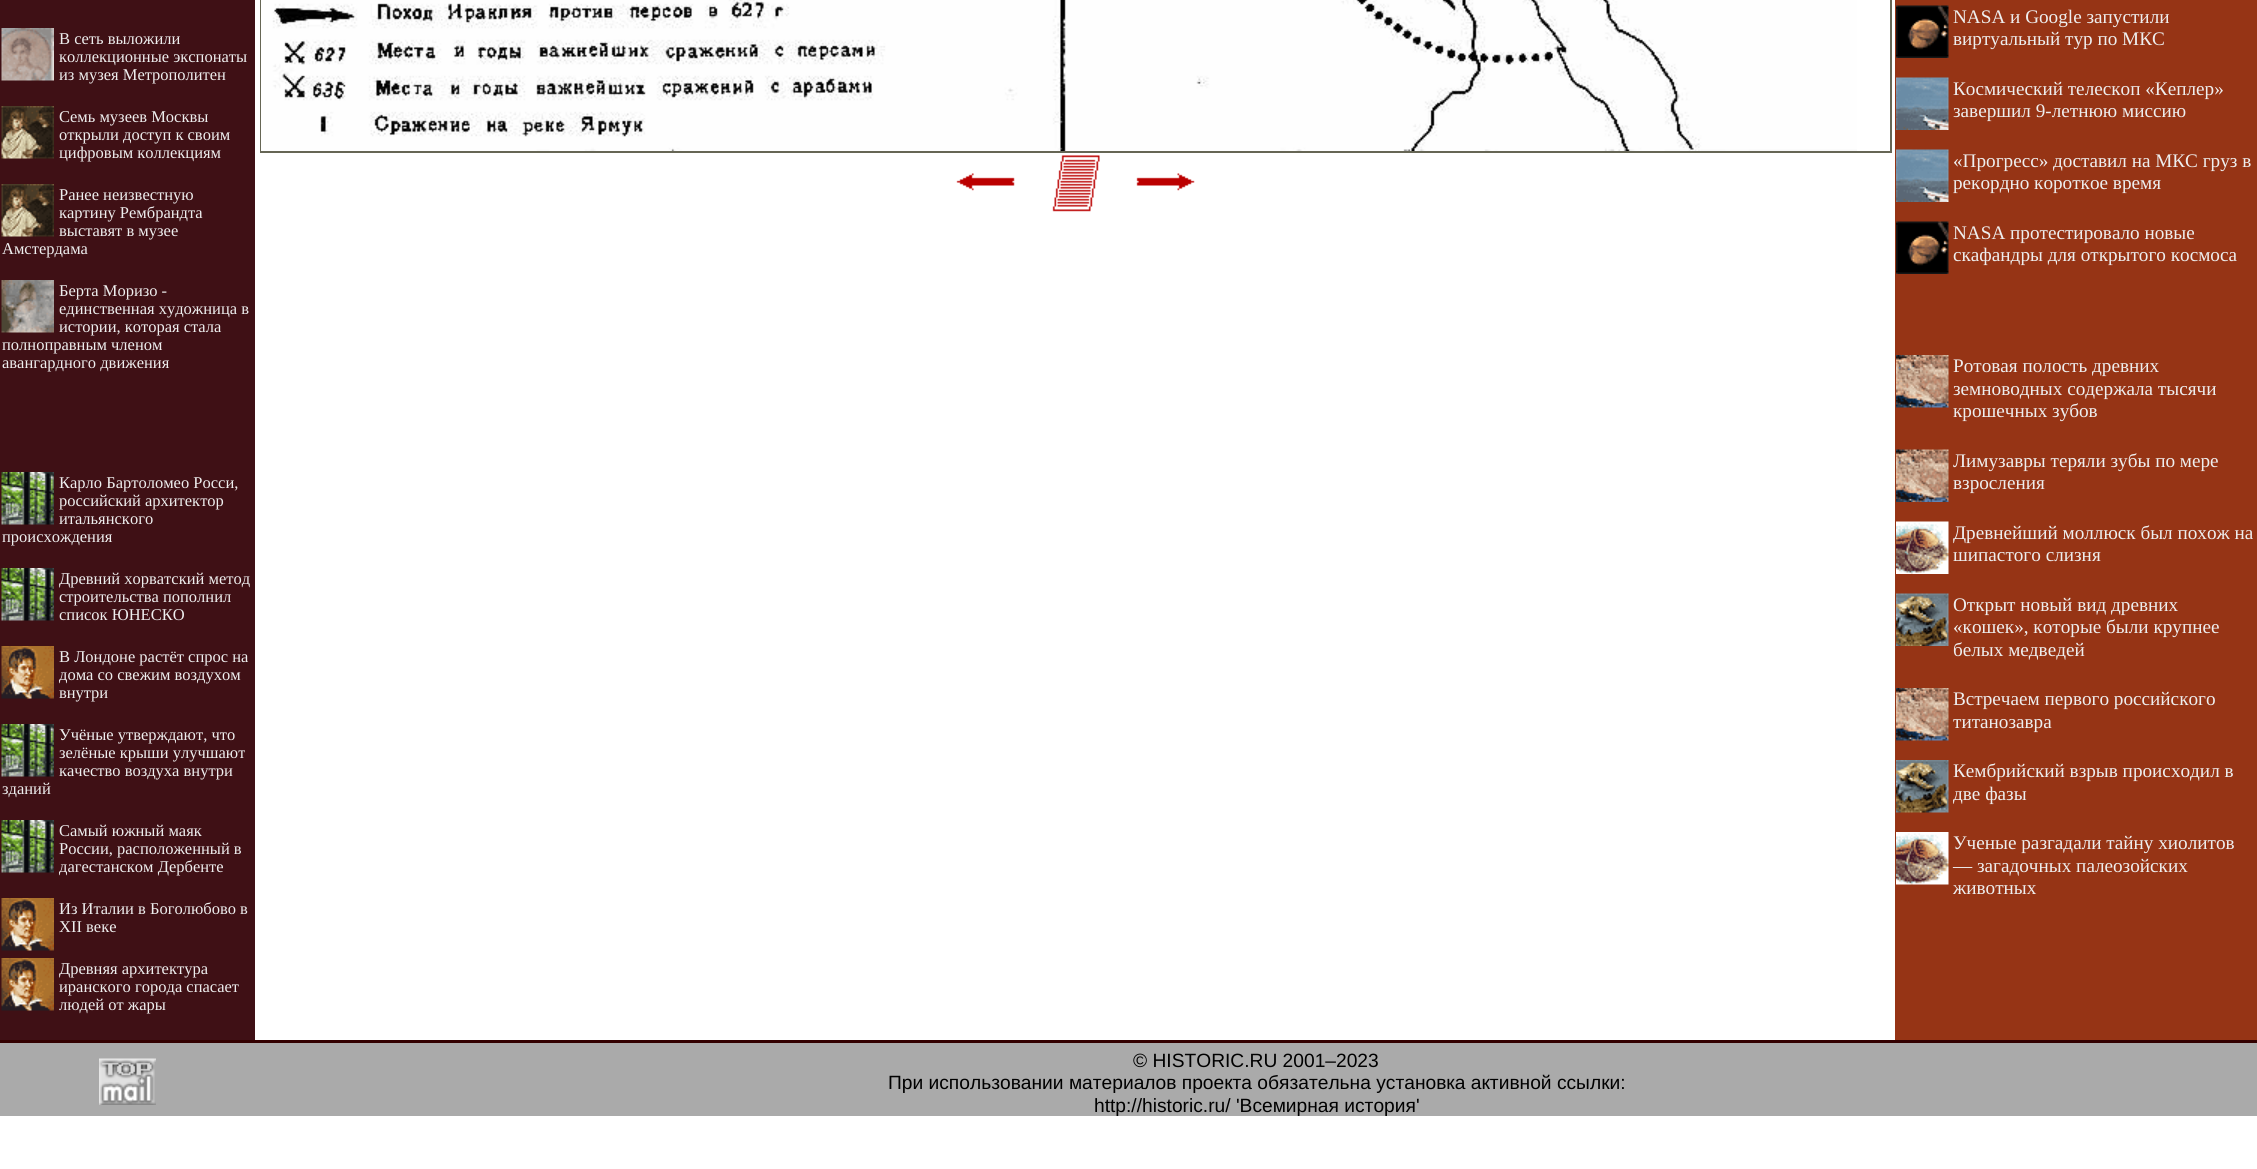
#include <cairo/cairo.h>
#include <math.h>
#include <stddef.h>

typedef struct { double x, y; const char *s; } line_t;
typedef struct { double x, y, w, h; unsigned color; } box_t;
static cairo_t *cr;

static void rgb(unsigned color)
{
	cairo_set_source_rgb(cr, (color >> 16) / 255.0, (color >> 8 & 255) / 255.0, (color & 255) / 255.0);
}

static void image(const char *path, double x, double y, double w, double h)
{
	cairo_surface_t *image = cairo_image_surface_create_from_png(path);
	cairo_save(cr);
	cairo_set_source_surface(cr, image, x, y);
	cairo_rectangle(cr, x, y, w, h);
	cairo_fill(cr);
	cairo_restore(cr);
	cairo_surface_destroy(image);
}

int main(void) {
	cairo_surface_t *surface = cairo_image_surface_create(CAIRO_FORMAT_RGB24, 2257, 1169);
	cr = cairo_create(surface);
	cairo_font_options_t *options = cairo_font_options_create();
	cairo_font_options_set_hint_metrics(options, CAIRO_HINT_METRICS_OFF);
	cairo_font_options_set_hint_style(options, CAIRO_HINT_STYLE_NONE);
	cairo_set_font_options(cr, options);
	cairo_set_miter_limit(cr, 4);
	rgb(0xffffff);
	cairo_paint(cr);
	rgb(0x3f1015);
	cairo_rectangle(cr, 0, 0, 255, 1040);
	cairo_fill(cr);
	image("img/1.png", 1, 28, 53, 53);
	image("img/2.png", 1, 106, 53, 53);
	image("img/2.png", 1, 184, 53, 53);
	image("img/3.png", 1, 280, 53, 53);
	image("img/4.png", 1, 472, 53, 53);
	image("img/4.png", 1, 568, 53, 53);
	image("img/5.png", 1, 646, 53, 53);
	image("img/4.png", 1, 724, 53, 53);
	image("img/4.png", 1, 820, 53, 53);
	image("img/5.png", 1, 898, 53, 53);
	image("img/5.png", 1, 958, 53, 53);
	cairo_rectangle(cr, 261, -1, 1630, 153);
	rgb(0x666655);
	cairo_stroke(cr);
	image("img/6.png", 261, 0, 1596, 151);
	image("img/7.png", 956, 173, 59, 18);
	image("img/8.png", 1052, 155, 48, 57);
	image("img/9.png", 1136, 173, 59, 18);
	rgb(0x963415);
	cairo_rectangle(cr, 1895, 0, 362, 1040);
	cairo_fill(cr);
	image("img/10.png", 1896, 5, 53, 53);
	image("img/11.png", 1896, 77, 53, 53);
	image("img/11.png", 1896, 149, 53, 53);
	image("img/10.png", 1896, 221, 53, 53);
	image("img/12.png", 1896, 355, 53, 53);
	image("img/13.png", 1896, 449, 53, 53);
	image("img/14.png", 1896, 521, 53, 53);
	image("img/15.png", 1896, 593, 53, 53);
	image("img/12.png", 1896, 688, 53, 53);
	image("img/16.png", 1896, 760, 53, 53);
	image("img/17.png", 1896, 832, 53, 53);
	{
		static const box_t items[] = {
			{0, 1040, 2257, 3, 0x330000},
			{0, 1043, 2257, 6, 0xaaaaaa},
			{0, 1049, 2257, 67, 0xaaaaaa},
		};
		for (size_t i = 0; i < sizeof items / sizeof *items; i++) {
			rgb(items[i].color);
			cairo_rectangle(cr, items[i].x, items[i].y, items[i].w, items[i].h);
			cairo_fill(cr);
		}
	}
	image("img/18.png", 99, 1058, 57, 47);
	cairo_select_font_face(cr, "Liberation Serif", CAIRO_FONT_SLANT_NORMAL, CAIRO_FONT_WEIGHT_NORMAL);
	cairo_set_font_size(cr, 16.5);
	rgb(0xeeeeee);
	{
		static const line_t items[] = {
			{59, 44, "В сеть выложили"},
			{59, 62, "коллекционные экспонаты"},
			{59, 80, "из музея Метрополитен"},
			{59, 122, "Семь музеев Москвы"},
			{59, 140, "открыли доступ к своим"},
			{59, 158, "цифровым коллекциям"},
			{59, 200, "Ранее неизвестную"},
			{59, 218, "картину Рембрандта"},
			{59, 236, "выставят в музее"},
			{2, 254, "Амстердама"},
			{59, 296, "Берта Моризо -"},
			{59, 314, "единственная художница в"},
			{59, 332, "истории, которая стала"},
			{2, 350, "полноправным членом"},
			{2, 368, "авангардного движения"},
			{59, 488, "Карло Бартоломео Росси,"},
			{59, 506, "российский архитектор"},
			{59, 524, "итальянского"},
			{2, 542, "происхождения"},
			{59, 584, "Древний хорватский метод"},
			{59, 602, "строительства пополнил"},
			{59, 620, "список ЮНЕСКО"},
			{59, 662, "В Лондоне растёт спрос на"},
			{59, 680, "дома со свежим воздухом"},
			{59, 698, "внутри"},
			{59, 740, "Учёные утверждают, что"},
			{59, 758, "зелёные крыши улучшают"},
			{59, 776, "качество воздуха внутри"},
			{2, 794, "зданий"},
			{59, 836, "Самый южный маяк"},
			{59, 854, "России, расположенный в"},
			{59, 872, "дагестанском Дербенте"},
			{59, 914, "Из Италии в Боголюбово в"},
			{59, 932, "XII веке"},
			{59, 974, "Древняя архитектура"},
			{59, 992, "иранского города спасает"},
			{59, 1010, "людей от жары"},
		};
		for (size_t i = 0; i < sizeof items / sizeof *items; i++) {
			cairo_move_to(cr, items[i].x, items[i].y);
			cairo_show_text(cr, items[i].s);
		}
	}
	cairo_set_font_size(cr, 19.2);
	{
		static const line_t items[] = {
			{1953, 23, "NASA и Google запустили"},
			{1953, 45, "виртуальный тур по МКС"},
			{1953, 95, "Космический телескоп «Кеплер»"},
			{1953, 117, "завершил 9-летнюю миссию"},
			{1953, 167, "«Прогресс» доставил на МКС груз в"},
			{1953, 189, "рекордно короткое время"},
			{1953, 239, "NASA протестировало новые"},
			{1953, 261, "скафандры для открытого космоса"},
			{1953, 372, "Ротовая полость древних"},
			{1953, 395, "земноводных содержала тысячи"},
			{1953, 417, "крошечных зубов"},
			{1953, 467, "Лимузавры теряли зубы по мере"},
			{1953, 489, "взросления"},
			{1953, 539, "Древнейший моллюск был похож на"},
			{1953, 561, "шипастого слизня"},
			{1953, 611, "Открыт новый вид древних"},
			{1953, 633, "«кошек», которые были крупнее"},
			{1953, 656, "белых медведей"},
			{1953, 705, "Встречаем первого российского"},
			{1953, 728, "титанозавра"},
			{1953, 777, "Кембрийский взрыв происходил в"},
			{1953, 800, "две фазы"},
			{1953, 849, "Ученые разгадали тайну хиолитов"},
			{1953, 872, "— загадочных палеозойских"},
			{1953, 894, "животных"},
		};
		for (size_t i = 0; i < sizeof items / sizeof *items; i++) {
			cairo_move_to(cr, items[i].x, items[i].y);
			cairo_show_text(cr, items[i].s);
		}
	}
	cairo_select_font_face(cr, "Liberation Sans", CAIRO_FONT_SLANT_NORMAL, CAIRO_FONT_WEIGHT_NORMAL);
	rgb(0x000000);
	{
		static const line_t items[] = {
			{1133, 1067, "© HISTORIC.RU 2001–2023"},
			{888, 1089, "При использовании материалов проекта обязательна установка активной ссылки:"},
			{1094, 1112, "http://historic.ru/ 'Всемирная история'"},
		};
		for (size_t i = 0; i < sizeof items / sizeof *items; i++) {
			cairo_move_to(cr, items[i].x, items[i].y);
			cairo_show_text(cr, items[i].s);
		}
	}
	cairo_surface_write_to_png(surface, "page.png");
	cairo_font_options_destroy(options);
	cairo_destroy(cr);
	cairo_surface_destroy(surface);
	return 0;
}
